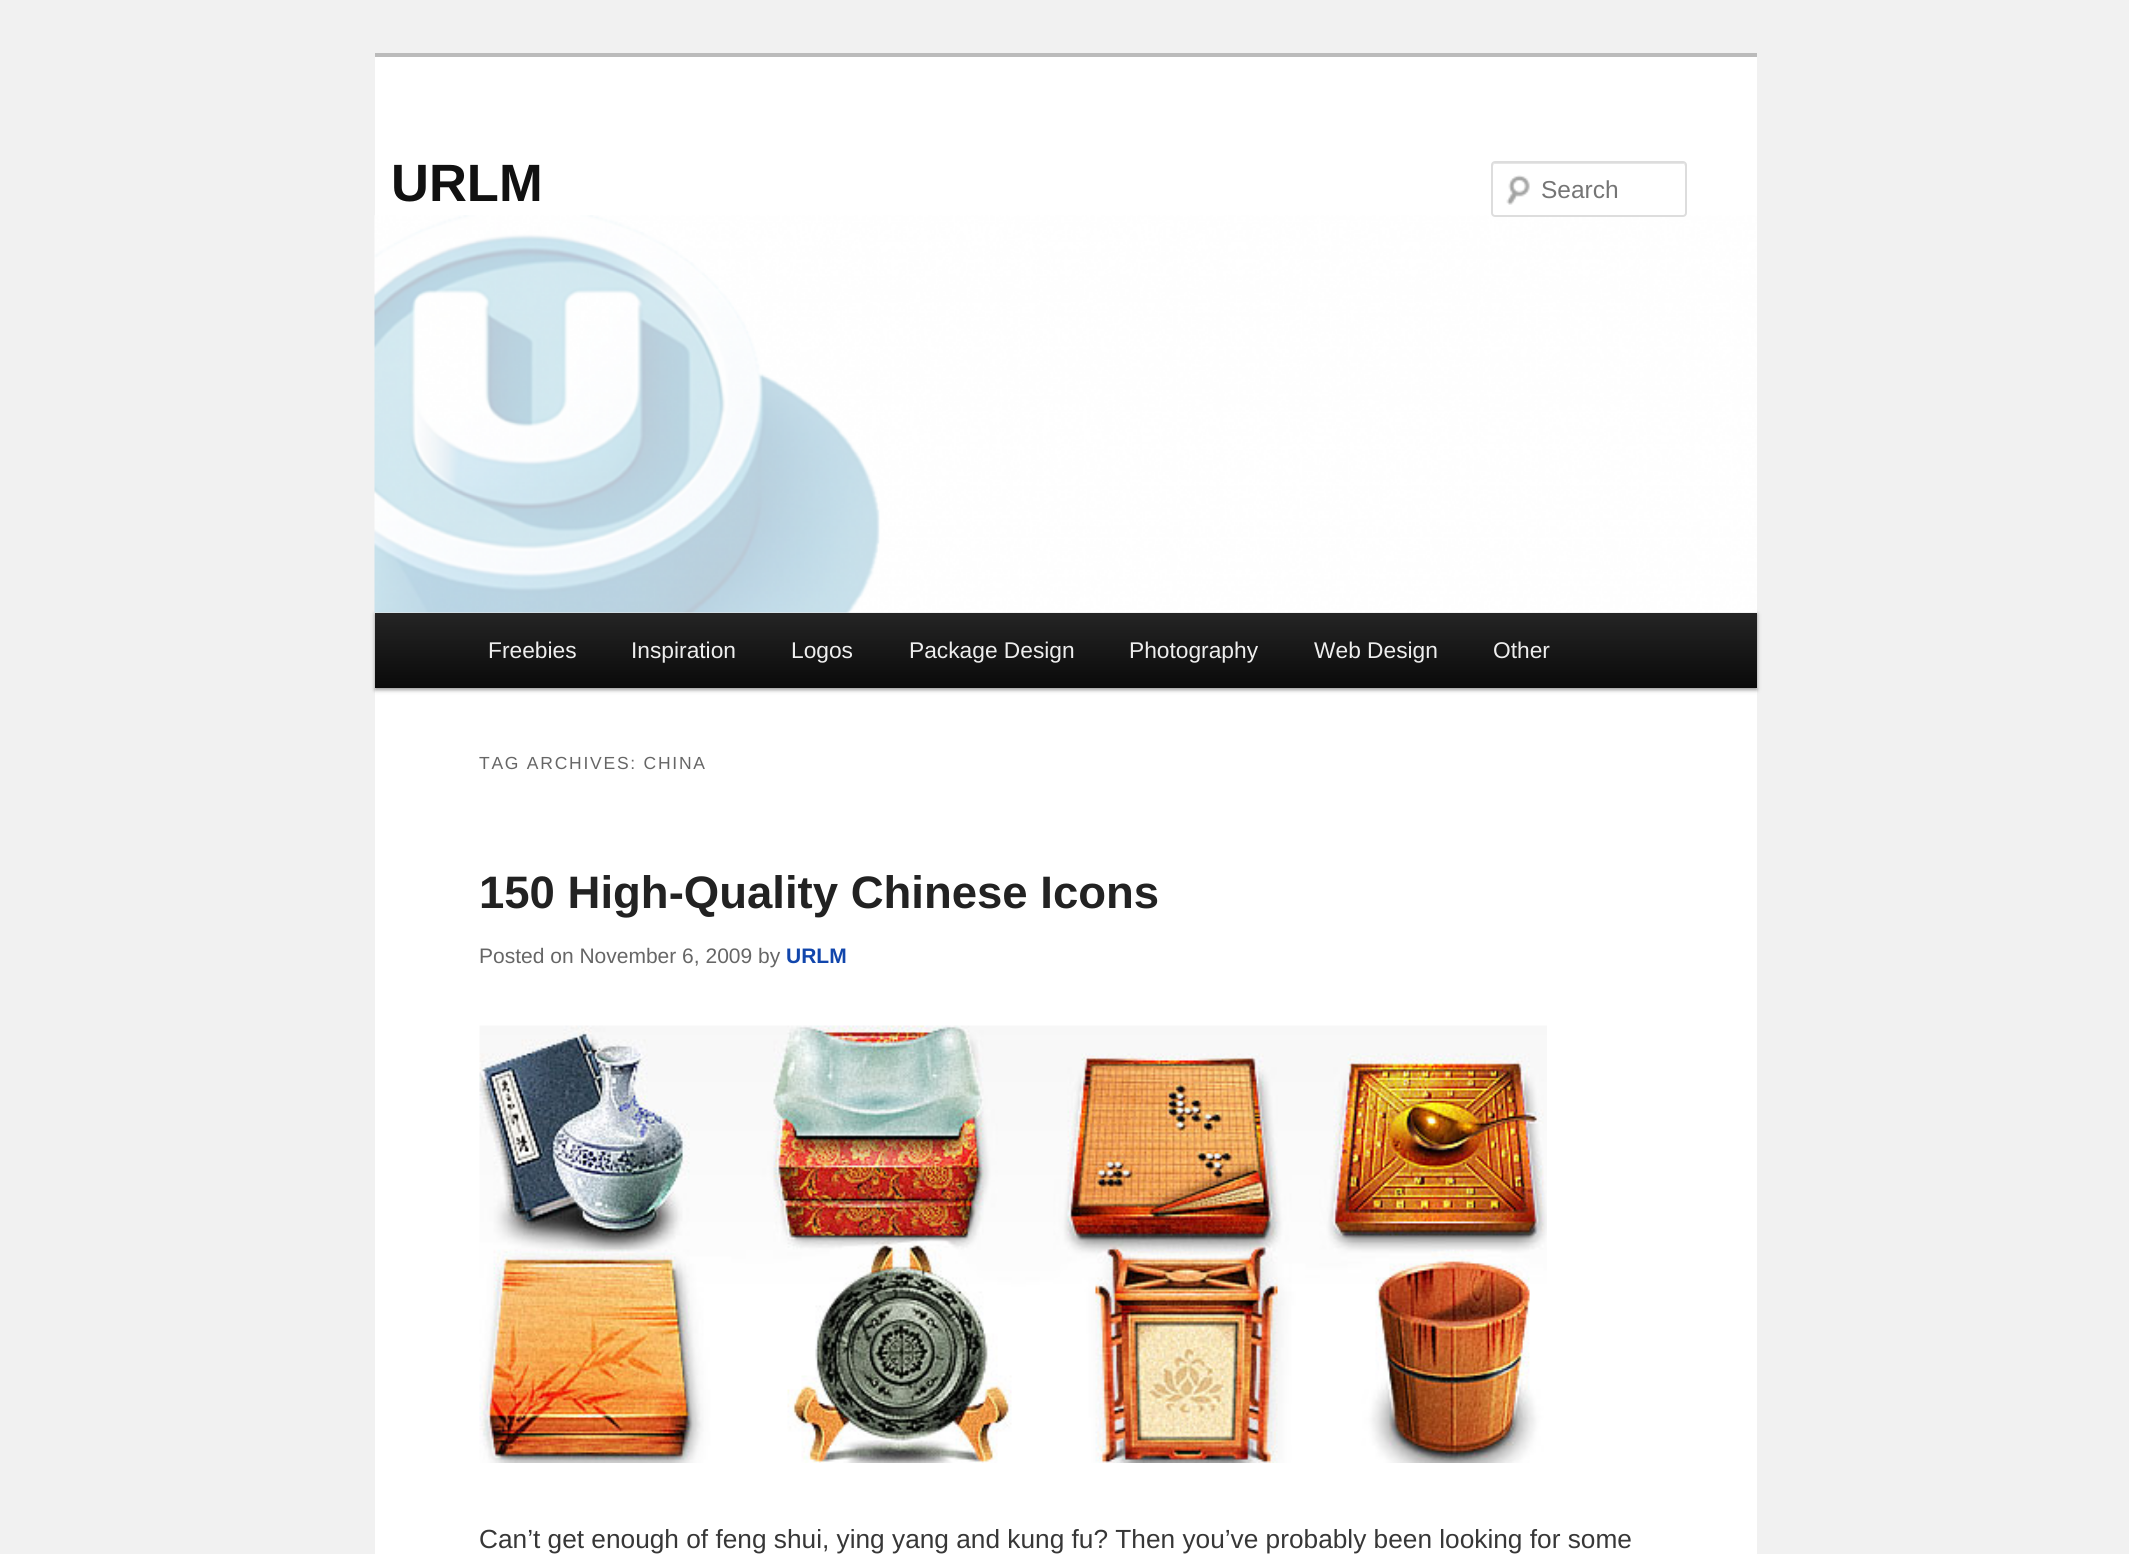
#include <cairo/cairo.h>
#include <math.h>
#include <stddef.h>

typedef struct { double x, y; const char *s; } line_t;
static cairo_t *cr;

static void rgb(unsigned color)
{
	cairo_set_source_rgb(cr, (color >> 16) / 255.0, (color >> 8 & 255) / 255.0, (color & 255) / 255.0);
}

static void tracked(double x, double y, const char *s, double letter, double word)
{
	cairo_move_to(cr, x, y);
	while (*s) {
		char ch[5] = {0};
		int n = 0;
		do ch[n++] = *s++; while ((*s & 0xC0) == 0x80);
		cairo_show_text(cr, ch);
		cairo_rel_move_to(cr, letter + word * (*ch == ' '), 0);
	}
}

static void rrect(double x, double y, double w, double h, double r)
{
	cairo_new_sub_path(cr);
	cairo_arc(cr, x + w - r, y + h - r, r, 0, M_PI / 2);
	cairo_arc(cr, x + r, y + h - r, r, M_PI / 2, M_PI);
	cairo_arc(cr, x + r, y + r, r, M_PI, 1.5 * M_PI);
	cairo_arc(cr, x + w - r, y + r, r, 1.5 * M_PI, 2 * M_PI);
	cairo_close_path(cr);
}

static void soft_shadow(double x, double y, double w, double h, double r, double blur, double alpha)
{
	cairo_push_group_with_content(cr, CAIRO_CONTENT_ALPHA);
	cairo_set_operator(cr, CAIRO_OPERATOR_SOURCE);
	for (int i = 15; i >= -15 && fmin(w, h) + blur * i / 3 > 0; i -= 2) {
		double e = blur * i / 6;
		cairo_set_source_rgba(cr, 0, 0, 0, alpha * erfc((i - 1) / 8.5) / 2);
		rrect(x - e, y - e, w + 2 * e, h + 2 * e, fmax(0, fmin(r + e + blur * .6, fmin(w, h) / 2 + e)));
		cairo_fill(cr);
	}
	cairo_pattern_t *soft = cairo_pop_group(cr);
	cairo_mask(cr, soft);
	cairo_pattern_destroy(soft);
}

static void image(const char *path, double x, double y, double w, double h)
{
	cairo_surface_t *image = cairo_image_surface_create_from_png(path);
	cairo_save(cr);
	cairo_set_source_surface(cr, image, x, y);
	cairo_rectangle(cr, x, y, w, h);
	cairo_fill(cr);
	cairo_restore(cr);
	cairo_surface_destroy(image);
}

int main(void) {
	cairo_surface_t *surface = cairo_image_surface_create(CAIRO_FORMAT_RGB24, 2129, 1554);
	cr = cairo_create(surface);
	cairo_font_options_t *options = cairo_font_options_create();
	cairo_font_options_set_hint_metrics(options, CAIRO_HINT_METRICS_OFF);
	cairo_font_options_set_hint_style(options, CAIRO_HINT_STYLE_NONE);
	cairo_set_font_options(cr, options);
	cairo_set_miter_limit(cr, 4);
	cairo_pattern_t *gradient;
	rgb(0xf1f1f1);
	cairo_paint(cr);
	rgb(0xffffff);
	cairo_rectangle(cr, 375, 57, 1382, 1497);
	cairo_fill(cr);
	rgb(0xbbbbbb);
	cairo_rectangle(cr, 375, 53, 1382, 4);
	cairo_fill(cr);
	image("img/1.png", 1506, 175, 24, 30);
	rgb(0xe6e6e6);
	cairo_new_path(cr);
	cairo_move_to(cr, 1494, 164);
	cairo_line_to(cr, 1684, 164);
	cairo_line_to(cr, 1685, 166);
	cairo_line_to(cr, 1685, 165);
	cairo_curve_to(cr, 1685, 164, 1684, 163, 1683, 163);
	cairo_line_to(cr, 1495, 163);
	cairo_curve_to(cr, 1494, 163, 1493, 164, 1493, 165);
	cairo_line_to(cr, 1493, 166);
	cairo_close_path(cr);
	cairo_fill(cr);
	rgb(0x000000);
	soft_shadow(375, 614, 1382, 76, 0, 2, 0.4);
	image("img/2.png", 374, 215, 1383, 398);
	rrect(1492, 162, 194, 54, 3);
	rgb(0xdddddd);
	cairo_stroke(cr);
	gradient = cairo_pattern_create_linear(1066, 612, 1066, 688);
	cairo_pattern_add_color_stop_rgba(gradient, 0, 0.145, 0.145, 0.145, 1);
	cairo_pattern_add_color_stop_rgba(gradient, 1, 0.039, 0.039, 0.039, 1);
	cairo_set_source(cr, gradient);
	cairo_pattern_destroy(gradient);
	cairo_rectangle(cr, 375, 613, 1382, 75);
	cairo_fill(cr);
	image("img/3.png", 479, 1025, 1068, 438);
	cairo_select_font_face(cr, "Liberation Sans", CAIRO_FONT_SLANT_NORMAL, CAIRO_FONT_WEIGHT_BOLD);
	cairo_set_font_size(cr, 52.5);
	rgb(0x111111);
	cairo_move_to(cr, 391, 201);
	cairo_show_text(cr, "URLM");
	cairo_select_font_face(cr, "Liberation Sans", CAIRO_FONT_SLANT_NORMAL, CAIRO_FONT_WEIGHT_NORMAL);
	cairo_set_font_size(cr, 24.5);
	rgb(0x757575);
	cairo_move_to(cr, 1541, 198);
	cairo_show_text(cr, "Search");
	cairo_set_font_size(cr, 22.75);
	rgb(0xeeeeee);
	{
		static const line_t items[] = {
			{488, 658, "Freebies"},
			{631, 658, "Inspiration"},
			{791, 658, "Logos"},
			{909, 658, "Package Design"},
			{1129, 658, "Photography"},
			{1314, 658, "Web Design"},
			{1493, 658, "Other"},
		};
		for (size_t i = 0; i < sizeof items / sizeof *items; i++) {
			cairo_move_to(cr, items[i].x, items[i].y);
			cairo_show_text(cr, items[i].s);
		}
	}
	cairo_set_font_size(cr, 17.5);
	rgb(0x666666);
	tracked(479, 769, "TAG ARCHIVES: CHINA", 1.75, 0);
	cairo_select_font_face(cr, "Liberation Sans", CAIRO_FONT_SLANT_NORMAL, CAIRO_FONT_WEIGHT_BOLD);
	cairo_set_font_size(cr, 45.5);
	rgb(0x222222);
	cairo_move_to(cr, 479, 908);
	cairo_show_text(cr, "150 High-Quality Chinese Icons");
	cairo_select_font_face(cr, "Liberation Sans", CAIRO_FONT_SLANT_NORMAL, CAIRO_FONT_WEIGHT_NORMAL);
	cairo_set_font_size(cr, 21);
	rgb(0x666666);
	cairo_move_to(cr, 479, 963);
	cairo_show_text(cr, "Posted on November 6, 2009 by");
	cairo_select_font_face(cr, "Liberation Sans", CAIRO_FONT_SLANT_NORMAL, CAIRO_FONT_WEIGHT_BOLD);
	rgb(0x1146ac);
	cairo_move_to(cr, 786, 963);
	cairo_show_text(cr, "URLM");
	cairo_select_font_face(cr, "Liberation Sans", CAIRO_FONT_SLANT_NORMAL, CAIRO_FONT_WEIGHT_NORMAL);
	cairo_set_font_size(cr, 26.25);
	rgb(0x373737);
	cairo_move_to(cr, 479, 1548);
	cairo_show_text(cr, "Can’t get enough of feng shui, ying yang and kung fu? Then you’ve probably been looking for some");
	cairo_surface_write_to_png(surface, "page.png");
	cairo_font_options_destroy(options);
	cairo_destroy(cr);
	cairo_surface_destroy(surface);
	return 0;
}
